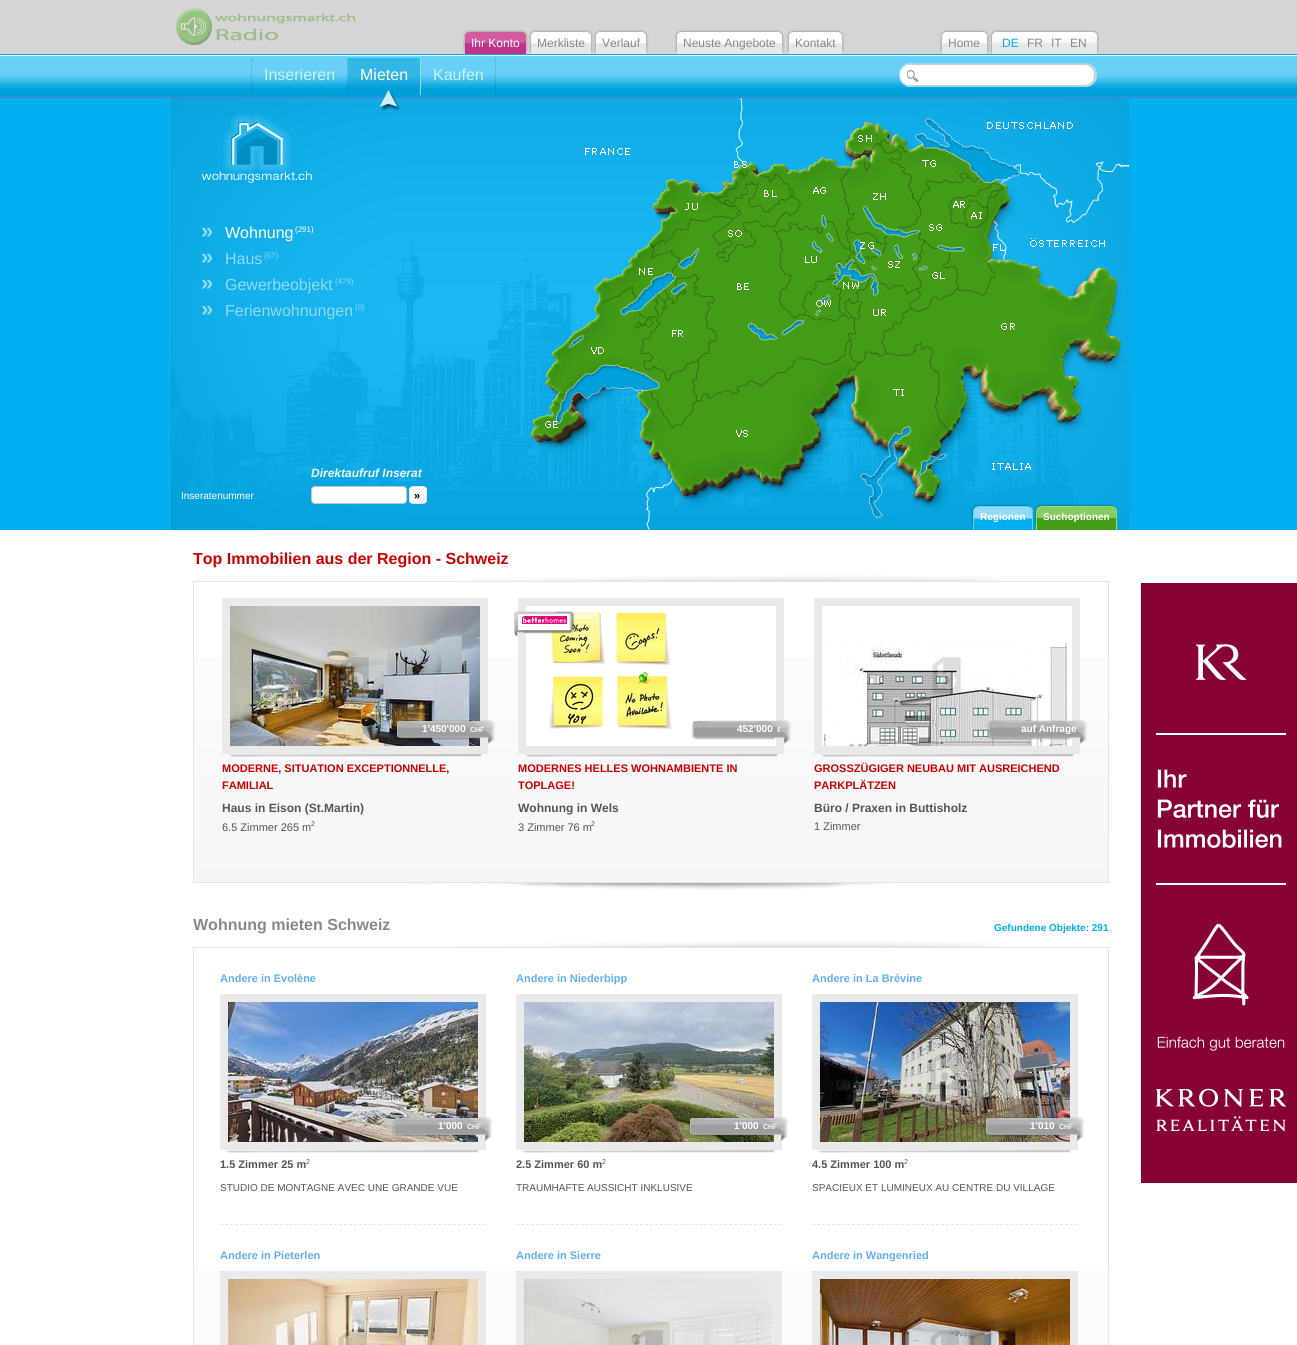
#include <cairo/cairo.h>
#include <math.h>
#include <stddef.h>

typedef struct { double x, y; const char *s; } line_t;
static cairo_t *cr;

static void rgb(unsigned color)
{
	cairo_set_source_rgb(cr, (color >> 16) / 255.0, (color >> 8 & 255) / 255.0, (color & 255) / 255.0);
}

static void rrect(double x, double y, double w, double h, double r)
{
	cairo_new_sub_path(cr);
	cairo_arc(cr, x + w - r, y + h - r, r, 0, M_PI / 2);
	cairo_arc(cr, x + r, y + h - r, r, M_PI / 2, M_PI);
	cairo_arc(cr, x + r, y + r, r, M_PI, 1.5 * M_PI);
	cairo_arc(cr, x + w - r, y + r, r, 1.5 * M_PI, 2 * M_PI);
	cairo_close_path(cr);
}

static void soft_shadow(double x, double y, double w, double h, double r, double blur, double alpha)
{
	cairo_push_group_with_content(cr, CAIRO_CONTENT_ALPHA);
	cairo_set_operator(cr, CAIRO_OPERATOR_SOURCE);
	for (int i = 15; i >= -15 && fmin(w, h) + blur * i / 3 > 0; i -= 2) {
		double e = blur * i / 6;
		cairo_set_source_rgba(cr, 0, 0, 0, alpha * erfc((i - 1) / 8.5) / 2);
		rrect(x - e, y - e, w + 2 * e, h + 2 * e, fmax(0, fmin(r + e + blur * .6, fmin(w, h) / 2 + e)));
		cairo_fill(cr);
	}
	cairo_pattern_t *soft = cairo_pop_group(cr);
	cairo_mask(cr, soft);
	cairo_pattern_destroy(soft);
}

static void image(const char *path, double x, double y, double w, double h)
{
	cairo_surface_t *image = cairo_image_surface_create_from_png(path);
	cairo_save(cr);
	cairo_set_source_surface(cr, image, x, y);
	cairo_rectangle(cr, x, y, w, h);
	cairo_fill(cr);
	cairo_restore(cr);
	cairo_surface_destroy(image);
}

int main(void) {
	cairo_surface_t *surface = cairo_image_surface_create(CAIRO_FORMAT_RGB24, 1297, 1345);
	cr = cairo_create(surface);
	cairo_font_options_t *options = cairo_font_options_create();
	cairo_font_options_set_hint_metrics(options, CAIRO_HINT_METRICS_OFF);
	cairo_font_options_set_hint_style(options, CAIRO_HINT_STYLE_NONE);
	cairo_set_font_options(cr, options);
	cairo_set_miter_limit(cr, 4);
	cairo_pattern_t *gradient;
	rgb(0xffffff);
	cairo_paint(cr);
	rgb(0xd5d5d5);
	cairo_rectangle(cr, 0, 0, 1297, 54);
	cairo_fill(cr);
	image("img/1.png", 176, 8, 179, 37);
	rgb(0x000000);
	soft_shadow(464, 31, 63, 24, 5, 1, 0.2);
	gradient = cairo_pattern_create_linear(496, 32, 496, 54);
	cairo_pattern_add_color_stop_rgba(gradient, 0.01, 0.824, 0.353, 0.624, 1);
	cairo_pattern_add_color_stop_rgba(gradient, 0.46, 0.824, 0.353, 0.624, 1);
	cairo_pattern_add_color_stop_rgba(gradient, 0.55, 0.741, 0.196, 0.545, 1);
	cairo_set_source(cr, gradient);
	cairo_pattern_destroy(gradient);
	cairo_new_path(cr);
	cairo_move_to(cr, 469, 32);
	cairo_line_to(cr, 522, 32);
	cairo_curve_to(cr, 524, 32, 526, 34, 526, 36);
	cairo_line_to(cr, 526, 54);
	cairo_line_to(cr, 465, 54);
	cairo_line_to(cr, 465, 36);
	cairo_curve_to(cr, 465, 34, 467, 32, 469, 32);
	cairo_close_path(cr);
	cairo_fill(cr);
	rgb(0x000000);
	soft_shadow(530, 31, 62, 24, 5, 1, 0.2);
	gradient = cairo_pattern_create_linear(561, 32, 561, 54);
	cairo_pattern_add_color_stop_rgba(gradient, 0.01, 1, 1, 1, 1);
	cairo_pattern_add_color_stop_rgba(gradient, 0.46, 1, 1, 1, 1);
	cairo_pattern_add_color_stop_rgba(gradient, 0.55, 0.906, 0.906, 0.906, 1);
	cairo_set_source(cr, gradient);
	cairo_pattern_destroy(gradient);
	cairo_new_path(cr);
	cairo_move_to(cr, 535, 32);
	cairo_line_to(cr, 587, 32);
	cairo_curve_to(cr, 589, 32, 591, 34, 591, 36);
	cairo_line_to(cr, 591, 54);
	cairo_line_to(cr, 531, 54);
	cairo_line_to(cr, 531, 36);
	cairo_curve_to(cr, 531, 34, 533, 32, 535, 32);
	cairo_close_path(cr);
	cairo_fill(cr);
	rgb(0x000000);
	soft_shadow(595, 31, 52, 24, 5, 1, 0.2);
	gradient = cairo_pattern_create_linear(621, 32, 621, 54);
	cairo_pattern_add_color_stop_rgba(gradient, 0.01, 1, 1, 1, 1);
	cairo_pattern_add_color_stop_rgba(gradient, 0.46, 1, 1, 1, 1);
	cairo_pattern_add_color_stop_rgba(gradient, 0.55, 0.906, 0.906, 0.906, 1);
	cairo_set_source(cr, gradient);
	cairo_pattern_destroy(gradient);
	cairo_new_path(cr);
	cairo_move_to(cr, 600, 32);
	cairo_line_to(cr, 642, 32);
	cairo_curve_to(cr, 644, 32, 646, 34, 646, 36);
	cairo_line_to(cr, 646, 54);
	cairo_line_to(cr, 596, 54);
	cairo_line_to(cr, 596, 36);
	cairo_curve_to(cr, 596, 34, 598, 32, 600, 32);
	cairo_close_path(cr);
	cairo_fill(cr);
	rgb(0x000000);
	soft_shadow(676, 31, 107, 24, 5, 1, 0.2);
	gradient = cairo_pattern_create_linear(730, 32, 730, 54);
	cairo_pattern_add_color_stop_rgba(gradient, 0.01, 1, 1, 1, 1);
	cairo_pattern_add_color_stop_rgba(gradient, 0.46, 1, 1, 1, 1);
	cairo_pattern_add_color_stop_rgba(gradient, 0.55, 0.906, 0.906, 0.906, 1);
	cairo_set_source(cr, gradient);
	cairo_pattern_destroy(gradient);
	cairo_new_path(cr);
	cairo_move_to(cr, 681, 32);
	cairo_line_to(cr, 778, 32);
	cairo_curve_to(cr, 780, 32, 782, 34, 782, 36);
	cairo_line_to(cr, 782, 54);
	cairo_line_to(cr, 677, 54);
	cairo_line_to(cr, 677, 36);
	cairo_curve_to(cr, 677, 34, 679, 32, 681, 32);
	cairo_close_path(cr);
	cairo_fill(cr);
	rgb(0x000000);
	soft_shadow(788, 31, 55, 24, 5, 1, 0.2);
	gradient = cairo_pattern_create_linear(816, 32, 816, 54);
	cairo_pattern_add_color_stop_rgba(gradient, 0.01, 1, 1, 1, 1);
	cairo_pattern_add_color_stop_rgba(gradient, 0.46, 1, 1, 1, 1);
	cairo_pattern_add_color_stop_rgba(gradient, 0.55, 0.906, 0.906, 0.906, 1);
	cairo_set_source(cr, gradient);
	cairo_pattern_destroy(gradient);
	cairo_new_path(cr);
	cairo_move_to(cr, 793, 32);
	cairo_line_to(cr, 838, 32);
	cairo_curve_to(cr, 840, 32, 842, 34, 842, 36);
	cairo_line_to(cr, 842, 54);
	cairo_line_to(cr, 789, 54);
	cairo_line_to(cr, 789, 36);
	cairo_curve_to(cr, 789, 34, 791, 32, 793, 32);
	cairo_close_path(cr);
	cairo_fill(cr);
	rgb(0x000000);
	soft_shadow(941, 31, 47, 24, 5, 1, 0.2);
	gradient = cairo_pattern_create_linear(965, 32, 965, 54);
	cairo_pattern_add_color_stop_rgba(gradient, 0.01, 1, 1, 1, 1);
	cairo_pattern_add_color_stop_rgba(gradient, 0.46, 1, 1, 1, 1);
	cairo_pattern_add_color_stop_rgba(gradient, 0.55, 0.906, 0.906, 0.906, 1);
	cairo_set_source(cr, gradient);
	cairo_pattern_destroy(gradient);
	cairo_new_path(cr);
	cairo_move_to(cr, 946, 32);
	cairo_line_to(cr, 983, 32);
	cairo_curve_to(cr, 985, 32, 987, 34, 987, 36);
	cairo_line_to(cr, 987, 54);
	cairo_line_to(cr, 942, 54);
	cairo_line_to(cr, 942, 36);
	cairo_curve_to(cr, 942, 34, 944, 32, 946, 32);
	cairo_close_path(cr);
	cairo_fill(cr);
	rgb(0x000000);
	soft_shadow(991, 31, 107, 24, 5, 1, 0.2);
	gradient = cairo_pattern_create_linear(1045, 32, 1045, 54);
	cairo_pattern_add_color_stop_rgba(gradient, 0.01, 1, 1, 1, 1);
	cairo_pattern_add_color_stop_rgba(gradient, 0.46, 0.969, 0.969, 0.969, 1);
	cairo_pattern_add_color_stop_rgba(gradient, 0.55, 0.906, 0.906, 0.906, 1);
	cairo_set_source(cr, gradient);
	cairo_pattern_destroy(gradient);
	cairo_new_path(cr);
	cairo_move_to(cr, 996, 32);
	cairo_line_to(cr, 1093, 32);
	cairo_curve_to(cr, 1095, 32, 1097, 34, 1097, 36);
	cairo_line_to(cr, 1097, 54);
	cairo_line_to(cr, 992, 54);
	cairo_line_to(cr, 992, 36);
	cairo_curve_to(cr, 992, 34, 994, 32, 996, 32);
	cairo_close_path(cr);
	cairo_fill(cr);
	image("img/2.png", 0, 54, 1297, 44);
	cairo_set_source_rgba(cr, 0, 0, 0, 0.1);
	cairo_rectangle(cr, 347, 58, 1, 37);
	cairo_fill(cr);
	cairo_rectangle(cr, 251, 58, 1, 37);
	cairo_fill(cr);
	cairo_set_source_rgba(cr, 0, 0.624, 0.843, 0.5);
	cairo_rectangle(cr, 348, 58, 72, 37);
	cairo_fill(cr);
	rgb(0x8fdbf8);
	cairo_rectangle(cr, 420, 58, 1, 37);
	cairo_fill(cr);
	rgb(0x00aff0);
	cairo_rectangle(cr, 0, 98, 1297, 432);
	cairo_fill(cr);
	image("img/5.png", 169, 98, 960, 432);
	image("img/3.png", 379, 90, 22, 21);
	cairo_set_source_rgba(cr, 0, 0, 0, 0.1);
	cairo_rectangle(cr, 495, 58, 1, 37);
	cairo_fill(cr);
	rgb(0xffffff);
	rrect(899, 63, 198, 24, 12);
	cairo_fill(cr);
	rgb(0xcccccc);
	cairo_new_path(cr);
	cairo_move_to(cr, 910, 65);
	cairo_line_to(cr, 1084, 65);
	cairo_curve_to(cr, 1090, 65, 1094, 69, 1094, 75);
	cairo_curve_to(cr, 1094, 81, 1090, 85, 1084, 85);
	cairo_line_to(cr, 910, 85);
	cairo_curve_to(cr, 907, 85, 904, 84, 903, 82);
	cairo_curve_to(cr, 905, 84, 908, 86, 911, 86);
	cairo_line_to(cr, 1085, 86);
	cairo_curve_to(cr, 1091, 86, 1096, 81, 1096, 75);
	cairo_curve_to(cr, 1096, 69, 1091, 64, 1085, 64);
	cairo_line_to(cr, 911, 64);
	cairo_curve_to(cr, 908, 64, 905, 66, 903, 68);
	cairo_curve_to(cr, 904, 66, 907, 65, 910, 65);
	cairo_close_path(cr);
	cairo_fill(cr);
	rrect(899.5, 63.5, 197, 23, 11.5);
	rgb(0x8fdbf6);
	cairo_set_line_width(cr, 1);
	cairo_stroke(cr);
	image("img/4.png", 907, 70, 12, 12);
	image("img/6.png", 201, 114, 111, 69);
	image("img/7.png", 530, 98, 599, 432);
	image("img/10.png", 550, 139, 455, 291);
	image("img/8.png", 555, 118, 465, 401);
	image("img/9.png", 545, 122, 560, 348);
	rgb(0xffffff);
	rrect(311.5, 486.5, 95, 17, 3.5);
	cairo_fill_preserve(cr);
	rgb(0xc5c5c5);
	cairo_stroke(cr);
	cairo_save(cr);
	rrect(409, 486, 18, 18, 4);
	cairo_clip(cr);
	gradient = cairo_pattern_create_linear(418, 487, 418, 503);
	cairo_pattern_add_color_stop_rgba(gradient, 0, 1, 1, 1, 1);
	cairo_pattern_add_color_stop_rgba(gradient, 1, 0.961, 0.961, 0.961, 1);
	cairo_set_source(cr, gradient);
	cairo_pattern_destroy(gradient);
	cairo_rectangle(cr, 409, 487, 18, 16);
	cairo_fill(cr);
	cairo_restore(cr);
	rrect(409.5, 486.5, 17, 17, 3.5);
	rgb(0xe5e5e5);
	cairo_stroke(cr);
	rgb(0x000000);
	soft_shadow(972, 505, 60, 24, 6, 0.5, 0.2);
	soft_shadow(1035, 505, 81, 24, 6, 0.5, 0.2);
	cairo_save(cr);
	cairo_new_path(cr);
	cairo_move_to(cr, 979, 506);
	cairo_line_to(cr, 1027, 506);
	cairo_curve_to(cr, 1030.5, 506, 1033, 508.5, 1033, 512);
	cairo_line_to(cr, 1033, 530);
	cairo_line_to(cr, 973, 530);
	cairo_line_to(cr, 973, 512);
	cairo_curve_to(cr, 973, 508.5, 975.5, 506, 979, 506);
	cairo_close_path(cr);
	cairo_clip(cr);
	gradient = cairo_pattern_create_linear(1003, 507, 1003, 530);
	cairo_pattern_add_color_stop_rgba(gradient, 0.01, 0.561, 0.859, 0.973, 1);
	cairo_pattern_add_color_stop_rgba(gradient, 0.46, 0.561, 0.859, 0.973, 1);
	cairo_pattern_add_color_stop_rgba(gradient, 0.55, 0, 0.686, 0.941, 1);
	cairo_set_source(cr, gradient);
	cairo_pattern_destroy(gradient);
	cairo_rectangle(cr, 973, 507, 60, 23);
	cairo_fill(cr);
	cairo_restore(cr);
	rgb(0x66cff6);
	cairo_set_fill_rule(cr, CAIRO_FILL_RULE_EVEN_ODD);
	cairo_new_path(cr);
	cairo_move_to(cr, 979, 506);
	cairo_line_to(cr, 1027, 506);
	cairo_curve_to(cr, 1030, 506, 1033, 509, 1033, 512);
	cairo_line_to(cr, 1033, 530);
	cairo_line_to(cr, 973, 530);
	cairo_line_to(cr, 973, 512);
	cairo_curve_to(cr, 973, 509, 976, 506, 979, 506);
	cairo_close_path(cr);
	cairo_move_to(cr, 979, 507);
	cairo_line_to(cr, 1027, 507);
	cairo_curve_to(cr, 1030, 507, 1032, 509, 1032, 512);
	cairo_line_to(cr, 1032, 530);
	cairo_line_to(cr, 974, 530);
	cairo_line_to(cr, 974, 512);
	cairo_curve_to(cr, 974, 509, 976, 507, 979, 507);
	cairo_close_path(cr);
	cairo_fill(cr);
	cairo_save(cr);
	cairo_set_fill_rule(cr, CAIRO_FILL_RULE_WINDING);
	cairo_new_path(cr);
	cairo_move_to(cr, 1042, 506);
	cairo_line_to(cr, 1111, 506);
	cairo_curve_to(cr, 1114.5, 506, 1117, 508.5, 1117, 512);
	cairo_line_to(cr, 1117, 530);
	cairo_line_to(cr, 1036, 530);
	cairo_line_to(cr, 1036, 512);
	cairo_curve_to(cr, 1036, 508.5, 1038.5, 506, 1042, 506);
	cairo_close_path(cr);
	cairo_clip(cr);
	rgb(0x87cb62);
	cairo_rectangle(cr, 1036, 507, 81, 11);
	cairo_fill(cr);
	cairo_restore(cr);
	rgb(0x459c18);
	cairo_rectangle(cr, 1037, 518, 79, 12);
	cairo_fill(cr);
	rgb(0x8ee561);
	cairo_new_path(cr);
	cairo_move_to(cr, 1042, 506);
	cairo_line_to(cr, 1111, 506);
	cairo_curve_to(cr, 1114, 506, 1117, 509, 1117, 512);
	cairo_line_to(cr, 1117, 530);
	cairo_line_to(cr, 1036, 530);
	cairo_line_to(cr, 1036, 512);
	cairo_curve_to(cr, 1036, 509, 1039, 506, 1042, 506);
	cairo_close_path(cr);
	cairo_move_to(cr, 1042, 507);
	cairo_line_to(cr, 1111, 507);
	cairo_curve_to(cr, 1114, 507, 1116, 509, 1116, 512);
	cairo_line_to(cr, 1116, 530);
	cairo_line_to(cr, 1037, 530);
	cairo_line_to(cr, 1037, 512);
	cairo_curve_to(cr, 1037, 509, 1039, 507, 1042, 507);
	cairo_close_path(cr);
	cairo_fill(cr);
	image("img/11.png", 456, 575, 545, 6);
	gradient = cairo_pattern_create_linear(651, 582, 651, 882);
	cairo_pattern_add_color_stop_rgba(gradient, 0, 1, 1, 1, 1);
	cairo_pattern_add_color_stop_rgba(gradient, 1, 0.961, 0.961, 0.961, 1);
	cairo_set_source(cr, gradient);
	cairo_pattern_destroy(gradient);
	cairo_rectangle(cr, 194, 657, 914, 225);
	cairo_fill(cr);
	cairo_rectangle(cr, 193.5, 581.5, 915, 301);
	rgb(0xe5e5e5);
	cairo_stroke(cr);
	cairo_rectangle(cr, 226, 602, 258, 148);
	rgb(0xeaeaea);
	cairo_set_line_width(cr, 8);
	cairo_stroke(cr);
	image("img/12.png", 230, 606, 250, 140);
	image("img/13.png", 395, 720, 100, 24);
	image("img/14.png", 229, 754, 253, 3);
	cairo_rectangle(cr, 522, 602, 258, 148);
	cairo_stroke(cr);
	image("img/15.png", 526, 612, 250, 134);
	image("img/16.png", 514, 611, 60, 25);
	image("img/17.png", 522, 616, 45, 8);
	image("img/18.png", 691, 720, 100, 24);
	image("img/14.png", 525, 754, 253, 3);
	cairo_rectangle(cr, 818, 602, 258, 148);
	cairo_stroke(cr);
	image("img/19.png", 822, 638, 250, 108);
	image("img/20.png", 987, 720, 100, 24);
	image("img/14.png", 821, 754, 253, 3);
	image("img/21.png", 1141, 583, 156, 600);
	image("img/22.png", 409, 883, 482, 7);
	image("img/11.png", 456, 941, 545, 6);
	gradient = cairo_pattern_create_linear(651, 948, 651, 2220);
	cairo_pattern_add_color_stop_rgba(gradient, 0, 1, 1, 1, 1);
	cairo_pattern_add_color_stop_rgba(gradient, 1, 0.961, 0.961, 0.961, 1);
	cairo_set_source(cr, gradient);
	cairo_pattern_destroy(gradient);
	cairo_rectangle(cr, 194, 1266, 914, 79);
	cairo_fill(cr);
	cairo_rectangle(cr, 193.5, 947.5, 915, 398);
	rgb(0xe5e5e5);
	cairo_set_line_width(cr, 1);
	cairo_stroke(cr);
	cairo_new_path(cr);
	cairo_move_to(cr, 220, 1224.5);
	cairo_line_to(cr, 486, 1224.5);
	cairo_set_dash(cr, (double[]){3, 1.96}, 2, 0);
	cairo_stroke(cr);
	cairo_rectangle(cr, 224, 998, 258, 148);
	rgb(0xeaeaea);
	cairo_set_line_width(cr, 8);
	cairo_set_dash(cr, NULL, 0, 0);
	cairo_stroke(cr);
	image("img/23.png", 228, 1002, 250, 140);
	image("img/24.png", 392, 1117, 100, 24);
	image("img/25.png", 226, 1150, 253, 3);
	cairo_new_path(cr);
	cairo_move_to(cr, 516, 1224.5);
	cairo_line_to(cr, 782, 1224.5);
	rgb(0xe5e5e5);
	cairo_set_line_width(cr, 1);
	cairo_set_dash(cr, (double[]){3, 1.96}, 2, 0);
	cairo_stroke(cr);
	cairo_rectangle(cr, 520, 998, 258, 148);
	rgb(0xeaeaea);
	cairo_set_line_width(cr, 8);
	cairo_set_dash(cr, NULL, 0, 0);
	cairo_stroke(cr);
	image("img/26.png", 524, 1002, 250, 140);
	image("img/27.png", 688, 1117, 100, 24);
	image("img/25.png", 522, 1150, 253, 3);
	cairo_new_path(cr);
	cairo_move_to(cr, 812, 1224.5);
	cairo_line_to(cr, 1078, 1224.5);
	rgb(0xe5e5e5);
	cairo_set_line_width(cr, 1);
	cairo_set_dash(cr, (double[]){3, 1.96}, 2, 0);
	cairo_stroke(cr);
	cairo_rectangle(cr, 816, 998, 258, 148);
	rgb(0xeaeaea);
	cairo_set_line_width(cr, 8);
	cairo_set_dash(cr, NULL, 0, 0);
	cairo_stroke(cr);
	image("img/28.png", 820, 1002, 250, 140);
	image("img/29.png", 984, 1117, 100, 24);
	image("img/25.png", 818, 1150, 253, 3);
	cairo_rectangle(cr, 224, 1275, 258, 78);
	cairo_stroke(cr);
	image("img/30.png", 228, 1279, 250, 66);
	cairo_rectangle(cr, 520, 1275, 258, 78);
	cairo_stroke(cr);
	image("img/31.png", 524, 1279, 250, 66);
	cairo_rectangle(cr, 816, 1275, 258, 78);
	cairo_stroke(cr);
	image("img/32.png", 820, 1279, 250, 66);
	cairo_select_font_face(cr, "Liberation Sans", CAIRO_FONT_SLANT_NORMAL, CAIRO_FONT_WEIGHT_NORMAL);
	cairo_set_font_size(cr, 12);
	rgb(0xffffff);
	cairo_move_to(cr, 471, 47);
	cairo_show_text(cr, "Ihr Konto");
	rgb(0x888888);
	{
		static const line_t items[] = {
			{537, 47, "Merkliste"},
			{602, 47, "Verlauf"},
			{683, 47, "Neuste Angebote"},
			{795, 47, "Kontakt"},
			{948, 47, "Home"},
		};
		for (size_t i = 0; i < sizeof items / sizeof *items; i++) {
			cairo_move_to(cr, items[i].x, items[i].y);
			cairo_show_text(cr, items[i].s);
		}
	}
	rgb(0x00aff0);
	cairo_move_to(cr, 1002, 47);
	cairo_show_text(cr, "DE");
	rgb(0x888888);
	{
		static const line_t items[] = {
			{1027, 47, "FR"},
			{1051, 47, "IT"},
			{1070, 47, "EN"},
		};
		for (size_t i = 0; i < sizeof items / sizeof *items; i++) {
			cairo_move_to(cr, items[i].x, items[i].y);
			cairo_show_text(cr, items[i].s);
		}
	}
	cairo_set_font_size(cr, 16);
	rgb(0xc1f5ff);
	cairo_move_to(cr, 264, 80);
	cairo_show_text(cr, "Inserieren");
	rgb(0xffffff);
	cairo_move_to(cr, 360, 80);
	cairo_show_text(cr, "Mieten");
	rgb(0xc1f5ff);
	cairo_move_to(cr, 433, 80);
	cairo_show_text(cr, "Kaufen");
	cairo_select_font_face(cr, "Liberation Sans", CAIRO_FONT_SLANT_NORMAL, CAIRO_FONT_WEIGHT_BOLD);
	cairo_set_font_size(cr, 22);
	rgb(0x8fdbf8);
	cairo_move_to(cr, 201, 238);
	cairo_show_text(cr, "»");
	cairo_select_font_face(cr, "Liberation Sans", CAIRO_FONT_SLANT_NORMAL, CAIRO_FONT_WEIGHT_NORMAL);
	cairo_set_font_size(cr, 16);
	rgb(0xffffff);
	cairo_move_to(cr, 225, 238);
	cairo_show_text(cr, "Wohnung");
	cairo_set_font_size(cr, 8);
	cairo_move_to(cr, 295, 232);
	cairo_show_text(cr, "(291)");
	cairo_select_font_face(cr, "Liberation Sans", CAIRO_FONT_SLANT_NORMAL, CAIRO_FONT_WEIGHT_BOLD);
	cairo_set_font_size(cr, 22);
	rgb(0x8fdbf8);
	cairo_move_to(cr, 201, 264);
	cairo_show_text(cr, "»");
	cairo_select_font_face(cr, "Liberation Sans", CAIRO_FONT_SLANT_NORMAL, CAIRO_FONT_WEIGHT_NORMAL);
	cairo_set_font_size(cr, 16);
	cairo_move_to(cr, 225, 264);
	cairo_show_text(cr, "Haus");
	cairo_set_font_size(cr, 8);
	cairo_move_to(cr, 264, 258);
	cairo_show_text(cr, "(57)");
	cairo_select_font_face(cr, "Liberation Sans", CAIRO_FONT_SLANT_NORMAL, CAIRO_FONT_WEIGHT_BOLD);
	cairo_set_font_size(cr, 22);
	cairo_move_to(cr, 201, 290);
	cairo_show_text(cr, "»");
	cairo_select_font_face(cr, "Liberation Sans", CAIRO_FONT_SLANT_NORMAL, CAIRO_FONT_WEIGHT_NORMAL);
	cairo_set_font_size(cr, 16);
	cairo_move_to(cr, 225, 290);
	cairo_show_text(cr, "Gewerbeobjekt");
	cairo_set_font_size(cr, 8);
	cairo_move_to(cr, 335, 284);
	cairo_show_text(cr, "(479)");
	cairo_select_font_face(cr, "Liberation Sans", CAIRO_FONT_SLANT_NORMAL, CAIRO_FONT_WEIGHT_BOLD);
	cairo_set_font_size(cr, 22);
	cairo_move_to(cr, 201, 316);
	cairo_show_text(cr, "»");
	cairo_select_font_face(cr, "Liberation Sans", CAIRO_FONT_SLANT_NORMAL, CAIRO_FONT_WEIGHT_NORMAL);
	cairo_set_font_size(cr, 16);
	cairo_move_to(cr, 225, 316);
	cairo_show_text(cr, "Ferienwohnungen");
	cairo_set_font_size(cr, 8);
	cairo_move_to(cr, 355, 310);
	cairo_show_text(cr, "(0)");
	cairo_select_font_face(cr, "Liberation Sans", CAIRO_FONT_SLANT_ITALIC, CAIRO_FONT_WEIGHT_BOLD);
	cairo_set_font_size(cr, 12);
	rgb(0xf5f5f5);
	cairo_move_to(cr, 311, 477);
	cairo_show_text(cr, "Direktaufruf Inserat");
	cairo_select_font_face(cr, "Liberation Sans", CAIRO_FONT_SLANT_NORMAL, CAIRO_FONT_WEIGHT_NORMAL);
	cairo_set_font_size(cr, 10);
	rgb(0xffffff);
	cairo_move_to(cr, 181, 499);
	cairo_show_text(cr, "Inseratenummer");
	cairo_select_font_face(cr, "Liberation Sans", CAIRO_FONT_SLANT_NORMAL, CAIRO_FONT_WEIGHT_BOLD);
	cairo_set_font_size(cr, 11);
	rgb(0x000000);
	cairo_move_to(cr, 414, 499);
	cairo_show_text(cr, "»");
	cairo_set_font_size(cr, 10);
	rgb(0xffffff);
	cairo_move_to(cr, 980, 520);
	cairo_show_text(cr, "Regionen");
	cairo_move_to(cr, 1043, 520);
	cairo_show_text(cr, "Suchoptionen");
	cairo_set_font_size(cr, 16);
	rgb(0xcc0001);
	cairo_move_to(cr, 193, 564);
	cairo_show_text(cr, "Top Immobilien aus der Region - Schweiz");
	cairo_set_font_size(cr, 10);
	rgb(0xffffff);
	cairo_move_to(cr, 422, 732);
	cairo_show_text(cr, "1'450'000");
	cairo_set_font_size(cr, 7);
	cairo_move_to(cr, 470, 732);
	cairo_show_text(cr, "CHF");
	cairo_set_font_size(cr, 11);
	rgb(0xcc0001);
	cairo_move_to(cr, 222, 772);
	cairo_show_text(cr, "MODERNE, SITUATION EXCEPTIONNELLE,");
	cairo_move_to(cr, 222, 789);
	cairo_show_text(cr, "FAMILIAL");
	cairo_set_font_size(cr, 12);
	rgb(0x555555);
	cairo_move_to(cr, 222, 812);
	cairo_show_text(cr, "Haus in Eison (St.Martin)");
	cairo_select_font_face(cr, "Liberation Sans", CAIRO_FONT_SLANT_NORMAL, CAIRO_FONT_WEIGHT_NORMAL);
	cairo_set_font_size(cr, 11);
	cairo_move_to(cr, 222, 831);
	cairo_show_text(cr, "6.5 Zimmer 265 m");
	cairo_set_font_size(cr, 7);
	cairo_move_to(cr, 311, 826);
	cairo_show_text(cr, "2");
	cairo_select_font_face(cr, "Liberation Sans", CAIRO_FONT_SLANT_NORMAL, CAIRO_FONT_WEIGHT_BOLD);
	cairo_set_font_size(cr, 10);
	rgb(0xffffff);
	cairo_move_to(cr, 737, 732);
	cairo_show_text(cr, "452'000");
	cairo_set_font_size(cr, 7);
	cairo_move_to(cr, 777, 732);
	cairo_show_text(cr, "€");
	cairo_set_font_size(cr, 11);
	rgb(0xcc0001);
	cairo_move_to(cr, 518, 772);
	cairo_show_text(cr, "MODERNES HELLES WOHNAMBIENTE IN");
	cairo_move_to(cr, 518, 789);
	cairo_show_text(cr, "TOPLAGE!");
	cairo_set_font_size(cr, 12);
	rgb(0x555555);
	cairo_move_to(cr, 518, 812);
	cairo_show_text(cr, "Wohnung in Wels");
	cairo_select_font_face(cr, "Liberation Sans", CAIRO_FONT_SLANT_NORMAL, CAIRO_FONT_WEIGHT_NORMAL);
	cairo_set_font_size(cr, 11);
	cairo_move_to(cr, 518, 831);
	cairo_show_text(cr, "3 Zimmer 76 m");
	cairo_set_font_size(cr, 7);
	cairo_move_to(cr, 591, 826);
	cairo_show_text(cr, "2");
	cairo_select_font_face(cr, "Liberation Sans", CAIRO_FONT_SLANT_NORMAL, CAIRO_FONT_WEIGHT_BOLD);
	cairo_set_font_size(cr, 10);
	rgb(0xffffff);
	cairo_move_to(cr, 1021, 732);
	cairo_show_text(cr, "auf Anfrage");
	cairo_set_font_size(cr, 11);
	rgb(0xcc0001);
	cairo_move_to(cr, 814, 772);
	cairo_show_text(cr, "GROSSZÜGIGER NEUBAU MIT AUSREICHEND");
	cairo_move_to(cr, 814, 789);
	cairo_show_text(cr, "PARKPLÄTZEN");
	cairo_set_font_size(cr, 12);
	rgb(0x555555);
	cairo_move_to(cr, 814, 812);
	cairo_show_text(cr, "Büro / Praxen in Buttisholz");
	cairo_select_font_face(cr, "Liberation Sans", CAIRO_FONT_SLANT_NORMAL, CAIRO_FONT_WEIGHT_NORMAL);
	cairo_set_font_size(cr, 11);
	cairo_move_to(cr, 814, 830);
	cairo_show_text(cr, "1 Zimmer");
	cairo_select_font_face(cr, "Liberation Sans", CAIRO_FONT_SLANT_NORMAL, CAIRO_FONT_WEIGHT_BOLD);
	cairo_set_font_size(cr, 16);
	rgb(0x888888);
	cairo_move_to(cr, 193, 930);
	cairo_show_text(cr, "Wohnung mieten Schweiz");
	cairo_set_font_size(cr, 10);
	rgb(0x00aff0);
	cairo_move_to(cr, 994, 931);
	cairo_show_text(cr, "Gefundene Objekte: 291");
	cairo_set_font_size(cr, 11);
	rgb(0x61aff0);
	cairo_move_to(cr, 220, 982);
	cairo_show_text(cr, "Andere in Evolène");
	cairo_set_font_size(cr, 10);
	rgb(0xffffff);
	cairo_move_to(cr, 438, 1129);
	cairo_show_text(cr, "1'000");
	cairo_set_font_size(cr, 7);
	cairo_move_to(cr, 467, 1129);
	cairo_show_text(cr, "CHF");
	cairo_set_font_size(cr, 11);
	rgb(0x555555);
	cairo_move_to(cr, 220, 1168);
	cairo_show_text(cr, "1.5 Zimmer 25 m");
	cairo_select_font_face(cr, "Liberation Sans", CAIRO_FONT_SLANT_NORMAL, CAIRO_FONT_WEIGHT_NORMAL);
	cairo_set_font_size(cr, 7);
	cairo_move_to(cr, 306, 1164);
	cairo_show_text(cr, "2");
	cairo_set_font_size(cr, 10);
	cairo_move_to(cr, 220, 1191);
	cairo_show_text(cr, "STUDIO DE MONTAGNE AVEC UNE GRANDE VUE");
	cairo_select_font_face(cr, "Liberation Sans", CAIRO_FONT_SLANT_NORMAL, CAIRO_FONT_WEIGHT_BOLD);
	cairo_set_font_size(cr, 11);
	rgb(0x61aff0);
	cairo_move_to(cr, 516, 982);
	cairo_show_text(cr, "Andere in Niederbipp");
	cairo_set_font_size(cr, 10);
	rgb(0xffffff);
	cairo_move_to(cr, 734, 1129);
	cairo_show_text(cr, "1'000");
	cairo_set_font_size(cr, 7);
	cairo_move_to(cr, 763, 1129);
	cairo_show_text(cr, "CHF");
	cairo_set_font_size(cr, 11);
	rgb(0x555555);
	cairo_move_to(cr, 516, 1168);
	cairo_show_text(cr, "2.5 Zimmer 60 m");
	cairo_select_font_face(cr, "Liberation Sans", CAIRO_FONT_SLANT_NORMAL, CAIRO_FONT_WEIGHT_NORMAL);
	cairo_set_font_size(cr, 7);
	cairo_move_to(cr, 602, 1164);
	cairo_show_text(cr, "2");
	cairo_set_font_size(cr, 10);
	cairo_move_to(cr, 516, 1191);
	cairo_show_text(cr, "TRAUMHAFTE AUSSICHT INKLUSIVE");
	cairo_select_font_face(cr, "Liberation Sans", CAIRO_FONT_SLANT_NORMAL, CAIRO_FONT_WEIGHT_BOLD);
	cairo_set_font_size(cr, 11);
	rgb(0x61aff0);
	cairo_move_to(cr, 812, 982);
	cairo_show_text(cr, "Andere in La Brévine");
	cairo_set_font_size(cr, 10);
	rgb(0xffffff);
	cairo_move_to(cr, 1030, 1129);
	cairo_show_text(cr, "1'010");
	cairo_set_font_size(cr, 7);
	cairo_move_to(cr, 1059, 1129);
	cairo_show_text(cr, "CHF");
	cairo_set_font_size(cr, 11);
	rgb(0x555555);
	cairo_move_to(cr, 812, 1168);
	cairo_show_text(cr, "4.5 Zimmer 100 m");
	cairo_select_font_face(cr, "Liberation Sans", CAIRO_FONT_SLANT_NORMAL, CAIRO_FONT_WEIGHT_NORMAL);
	cairo_set_font_size(cr, 7);
	cairo_move_to(cr, 904, 1164);
	cairo_show_text(cr, "2");
	cairo_set_font_size(cr, 10);
	cairo_move_to(cr, 812, 1191);
	cairo_show_text(cr, "SPACIEUX ET LUMINEUX AU CENTRE DU VILLAGE");
	cairo_select_font_face(cr, "Liberation Sans", CAIRO_FONT_SLANT_NORMAL, CAIRO_FONT_WEIGHT_BOLD);
	cairo_set_font_size(cr, 11);
	rgb(0x61aff0);
	{
		static const line_t items[] = {
			{220, 1259, "Andere in Pieterlen"},
			{516, 1259, "Andere in Sierre"},
			{812, 1259, "Andere in Wangenried"},
		};
		for (size_t i = 0; i < sizeof items / sizeof *items; i++) {
			cairo_move_to(cr, items[i].x, items[i].y);
			cairo_show_text(cr, items[i].s);
		}
	}
	cairo_surface_write_to_png(surface, "page.png");
	cairo_font_options_destroy(options);
	cairo_destroy(cr);
	cairo_surface_destroy(surface);
	return 0;
}
